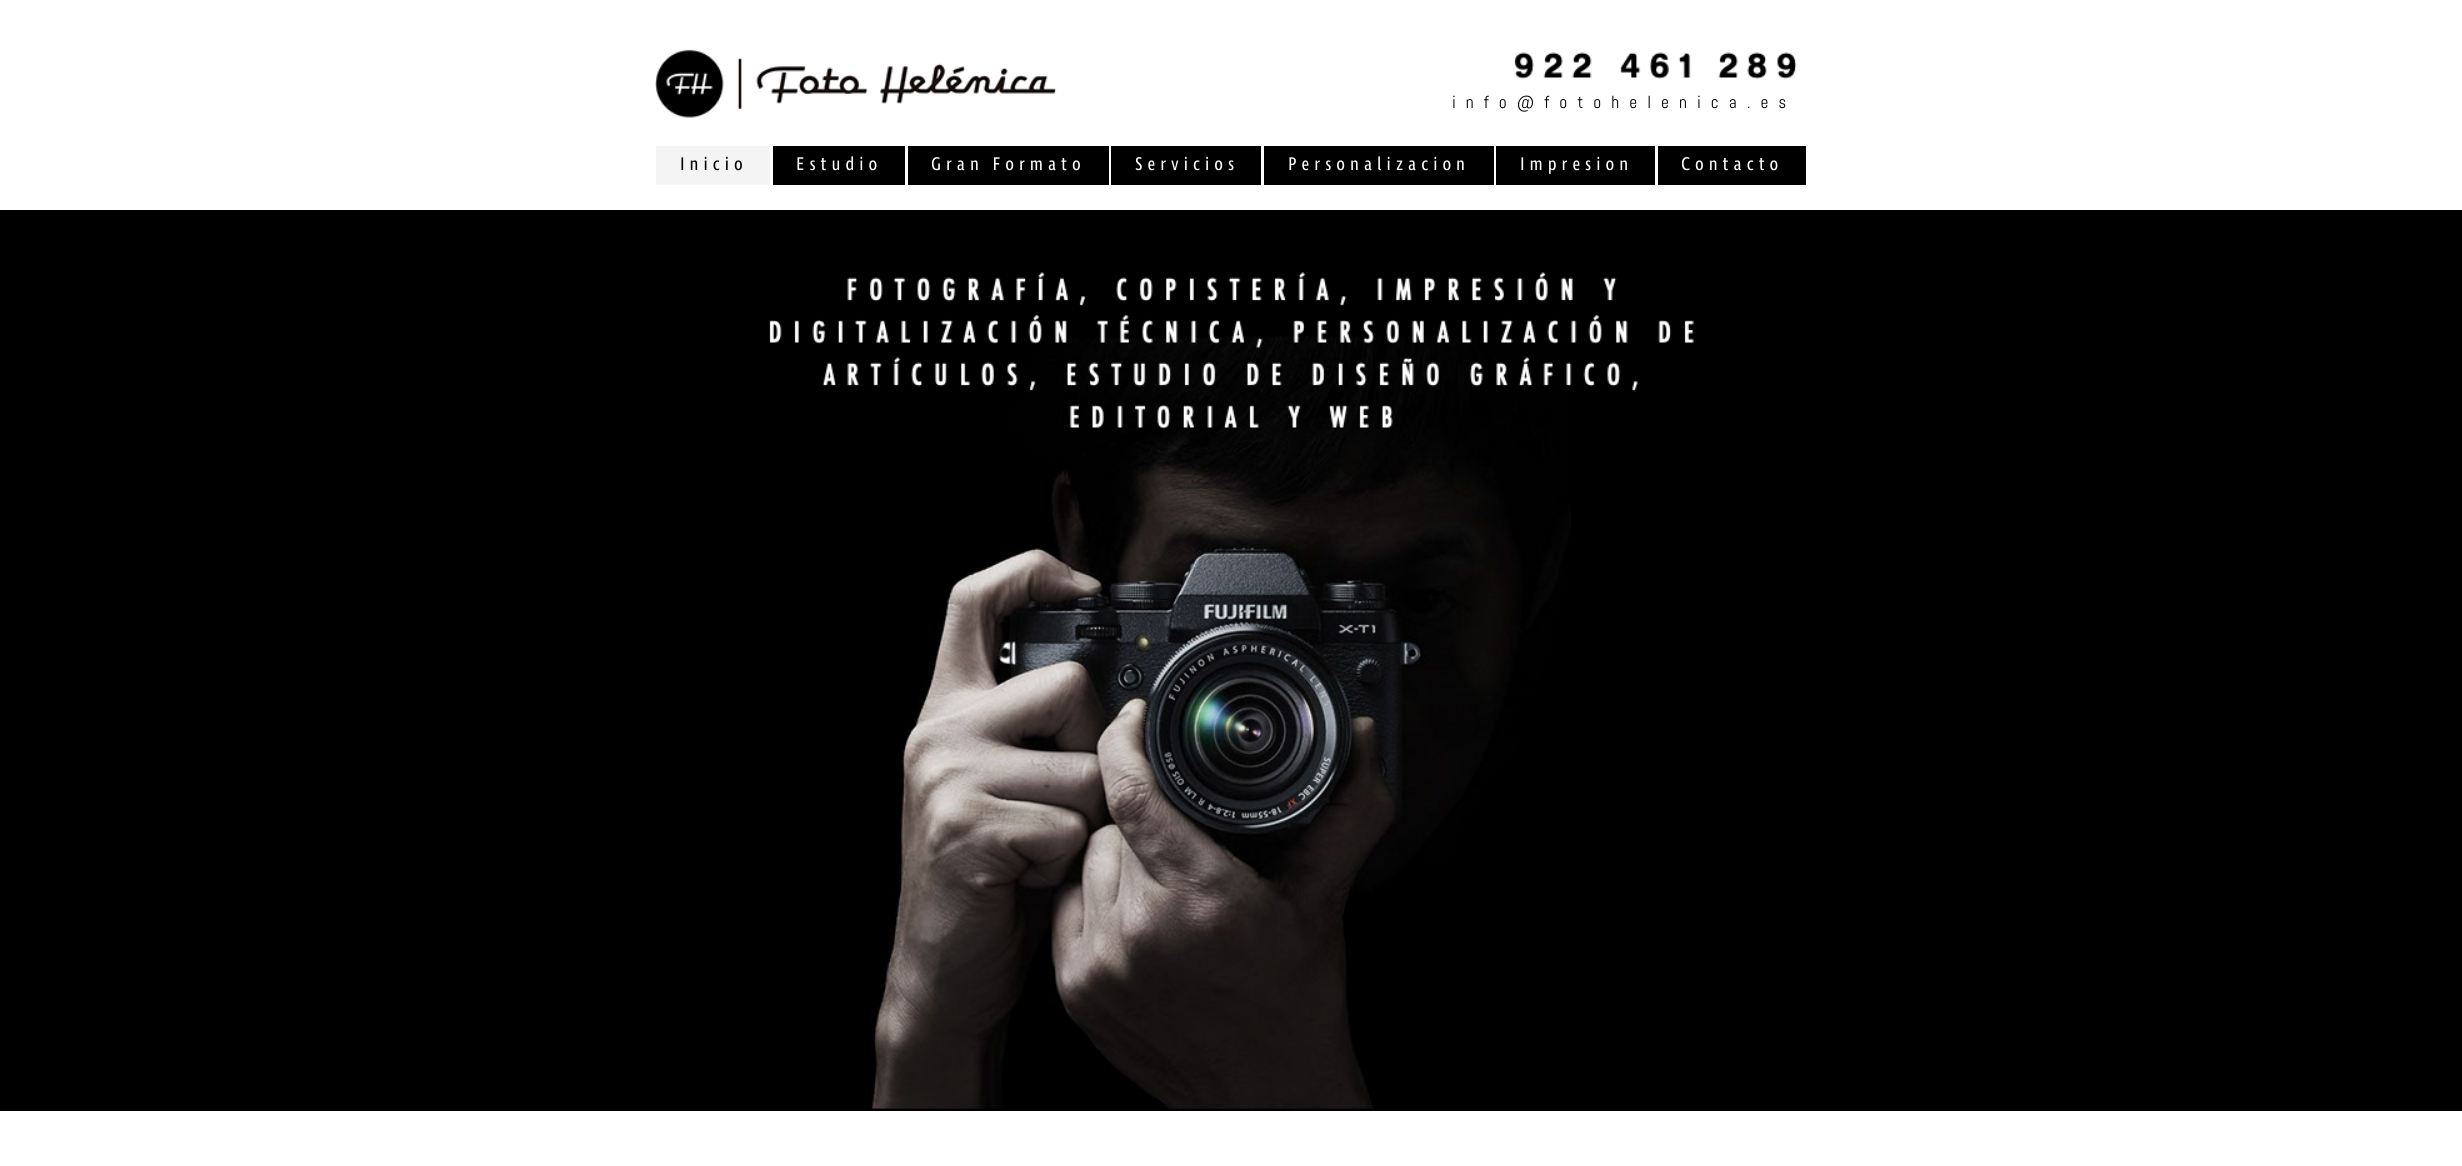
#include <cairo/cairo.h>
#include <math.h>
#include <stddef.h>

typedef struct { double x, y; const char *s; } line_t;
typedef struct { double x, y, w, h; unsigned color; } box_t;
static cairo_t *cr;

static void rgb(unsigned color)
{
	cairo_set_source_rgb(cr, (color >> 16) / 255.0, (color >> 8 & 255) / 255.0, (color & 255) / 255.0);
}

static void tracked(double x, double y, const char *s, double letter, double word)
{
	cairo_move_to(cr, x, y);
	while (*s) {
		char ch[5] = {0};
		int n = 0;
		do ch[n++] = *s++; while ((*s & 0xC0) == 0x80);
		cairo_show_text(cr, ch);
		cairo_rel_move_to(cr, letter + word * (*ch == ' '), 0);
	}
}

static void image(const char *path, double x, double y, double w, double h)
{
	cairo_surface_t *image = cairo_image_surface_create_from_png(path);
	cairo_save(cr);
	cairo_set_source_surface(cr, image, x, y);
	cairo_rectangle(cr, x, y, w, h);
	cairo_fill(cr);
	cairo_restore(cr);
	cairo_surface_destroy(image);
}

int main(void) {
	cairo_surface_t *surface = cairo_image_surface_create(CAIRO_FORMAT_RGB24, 2462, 1166);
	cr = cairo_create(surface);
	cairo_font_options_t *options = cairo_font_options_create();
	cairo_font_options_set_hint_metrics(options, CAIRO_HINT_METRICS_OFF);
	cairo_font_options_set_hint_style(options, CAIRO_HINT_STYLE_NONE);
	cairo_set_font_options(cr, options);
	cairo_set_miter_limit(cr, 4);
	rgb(0xffffff);
	cairo_paint(cr);
	image("img/1.png", 655, 49, 402, 69);
	image("img/2.png", 1514, 52, 283, 27);
	{
		static const box_t items[] = {
			{656, 146, 114, 39, 0xf4f4f4},
			{773, 146, 132, 39, 0x000000},
			{908, 146, 201, 39, 0x000000},
			{1111, 146, 150, 39, 0x000000},
			{1264, 146, 230, 39, 0x000000},
			{1496, 146, 159, 39, 0x000000},
			{1658, 146, 148, 39, 0x000000},
			{0, 210, 2462, 901, 0x000000},
		};
		for (size_t i = 0; i < sizeof items / sizeof *items; i++) {
			rgb(items[i].color);
			cairo_rectangle(cr, items[i].x, items[i].y, items[i].w, items[i].h);
			cairo_fill(cr);
		}
	}
	image("img/4.png", 870, 336, 701, 773);
	image("img/3.png", 769, 272, 925, 157);
	cairo_select_font_face(cr, "Abel", CAIRO_FONT_SLANT_NORMAL, CAIRO_FONT_WEIGHT_NORMAL);
	cairo_set_font_size(cr, 17.5);
	tracked(1452, 108, "info@fotohelenica.es", 10, 0);
	cairo_select_font_face(cr, "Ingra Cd", CAIRO_FONT_SLANT_NORMAL, CAIRO_FONT_WEIGHT_NORMAL);
	cairo_set_font_size(cr, 18.75);
	tracked(680, 170, "Inicio", 5, 0);
	rgb(0xffffff);
	{
		static const line_t items[] = {
			{796, 170, "Estudio"},
			{931, 170, "Gran Formato"},
			{1135, 170, "Servicios"},
			{1288, 170, "Personalizacion"},
			{1520, 170, "Impresion"},
			{1681, 170, "Contacto"},
		};
		for (size_t i = 0; i < sizeof items / sizeof *items; i++) {
			tracked(items[i].x, items[i].y, items[i].s, 5, 0);
		}
	}
	cairo_surface_write_to_png(surface, "page.png");
	cairo_font_options_destroy(options);
	cairo_destroy(cr);
	cairo_surface_destroy(surface);
	return 0;
}
